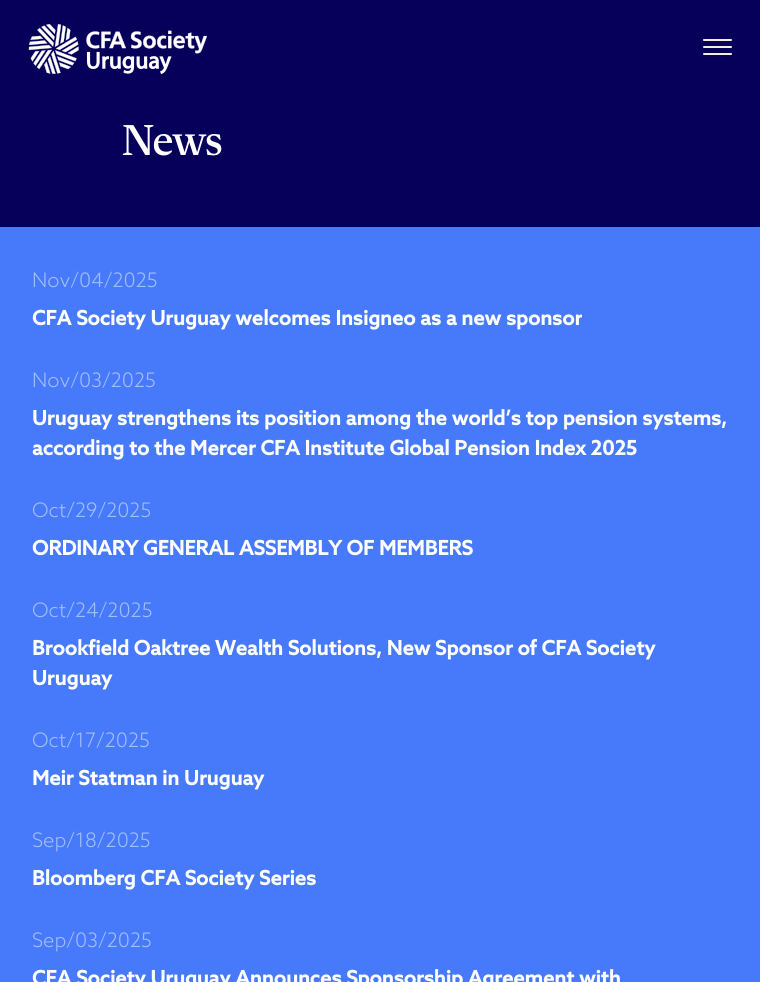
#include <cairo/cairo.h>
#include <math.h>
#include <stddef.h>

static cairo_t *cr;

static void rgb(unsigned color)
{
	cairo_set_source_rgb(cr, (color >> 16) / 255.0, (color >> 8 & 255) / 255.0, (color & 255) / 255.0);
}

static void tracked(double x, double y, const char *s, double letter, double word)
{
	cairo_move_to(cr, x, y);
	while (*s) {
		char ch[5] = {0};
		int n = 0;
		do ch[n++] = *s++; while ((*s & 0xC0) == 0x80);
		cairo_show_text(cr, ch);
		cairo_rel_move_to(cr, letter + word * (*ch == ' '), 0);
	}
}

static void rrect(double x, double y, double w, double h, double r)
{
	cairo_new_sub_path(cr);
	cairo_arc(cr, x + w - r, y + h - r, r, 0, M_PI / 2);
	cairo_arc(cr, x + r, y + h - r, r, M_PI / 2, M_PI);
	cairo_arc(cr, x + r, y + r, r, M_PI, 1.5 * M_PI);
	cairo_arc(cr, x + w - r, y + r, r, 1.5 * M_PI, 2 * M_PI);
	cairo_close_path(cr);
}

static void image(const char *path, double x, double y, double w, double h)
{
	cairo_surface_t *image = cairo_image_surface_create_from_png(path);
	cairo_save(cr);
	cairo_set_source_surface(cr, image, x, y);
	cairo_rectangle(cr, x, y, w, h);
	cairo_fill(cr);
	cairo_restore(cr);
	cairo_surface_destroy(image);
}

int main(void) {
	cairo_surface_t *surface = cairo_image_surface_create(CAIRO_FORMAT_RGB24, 760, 982);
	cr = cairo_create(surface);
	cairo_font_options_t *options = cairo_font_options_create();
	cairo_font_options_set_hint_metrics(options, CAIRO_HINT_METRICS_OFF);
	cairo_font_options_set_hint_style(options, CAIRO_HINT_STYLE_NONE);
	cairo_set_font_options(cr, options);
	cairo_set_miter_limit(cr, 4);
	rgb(0x06005a);
	cairo_paint(cr);
	image("img/1.png", 28, 24, 179, 50);
	rgb(0xf5ece0);
	rrect(703, 39, 29, 2, 1);
	cairo_fill(cr);
	rrect(703, 46, 29, 2, 1);
	cairo_fill(cr);
	rrect(703, 53, 29, 2, 1);
	cairo_fill(cr);
	rgb(0x477afb);
	cairo_rectangle(cr, 0, 227, 760, 755);
	cairo_fill(cr);
	cairo_select_font_face(cr, "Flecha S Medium", CAIRO_FONT_SLANT_NORMAL, CAIRO_FONT_WEIGHT_NORMAL);
	cairo_set_font_size(cr, 44);
	rgb(0xffffff);
	tracked(122, 155, "News", -1.5, 0);
	cairo_select_font_face(cr, "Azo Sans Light", CAIRO_FONT_SLANT_NORMAL, CAIRO_FONT_WEIGHT_NORMAL);
	cairo_set_font_size(cr, 20);
	rgb(0xa3bdfd);
	cairo_move_to(cr, 32, 287);
	cairo_show_text(cr, "Nov/04/2025");
	cairo_select_font_face(cr, "Azo Sans", CAIRO_FONT_SLANT_NORMAL, CAIRO_FONT_WEIGHT_BOLD);
	rgb(0xffffff);
	cairo_move_to(cr, 32, 325);
	cairo_show_text(cr, "CFA Society Uruguay welcomes Insigneo as a new sponsor");
	cairo_select_font_face(cr, "Azo Sans Light", CAIRO_FONT_SLANT_NORMAL, CAIRO_FONT_WEIGHT_NORMAL);
	rgb(0xa3bdfd);
	cairo_move_to(cr, 32, 387);
	cairo_show_text(cr, "Nov/03/2025");
	cairo_select_font_face(cr, "Azo Sans", CAIRO_FONT_SLANT_NORMAL, CAIRO_FONT_WEIGHT_BOLD);
	rgb(0xffffff);
	cairo_move_to(cr, 32, 425);
	cairo_show_text(cr, "Uruguay strengthens its position among the world’s top pension systems,");
	cairo_move_to(cr, 32, 455);
	cairo_show_text(cr, "according to the Mercer CFA Institute Global Pension Index 2025");
	cairo_select_font_face(cr, "Azo Sans Light", CAIRO_FONT_SLANT_NORMAL, CAIRO_FONT_WEIGHT_NORMAL);
	rgb(0xa3bdfd);
	cairo_move_to(cr, 32, 517);
	cairo_show_text(cr, "Oct/29/2025");
	cairo_select_font_face(cr, "Azo Sans", CAIRO_FONT_SLANT_NORMAL, CAIRO_FONT_WEIGHT_BOLD);
	rgb(0xffffff);
	cairo_move_to(cr, 32, 555);
	cairo_show_text(cr, "ORDINARY GENERAL ASSEMBLY OF MEMBERS");
	cairo_select_font_face(cr, "Azo Sans Light", CAIRO_FONT_SLANT_NORMAL, CAIRO_FONT_WEIGHT_NORMAL);
	rgb(0xa3bdfd);
	cairo_move_to(cr, 32, 617);
	cairo_show_text(cr, "Oct/24/2025");
	cairo_select_font_face(cr, "Azo Sans", CAIRO_FONT_SLANT_NORMAL, CAIRO_FONT_WEIGHT_BOLD);
	rgb(0xffffff);
	cairo_move_to(cr, 32, 655);
	cairo_show_text(cr, "Brookfield Oaktree Wealth Solutions, New Sponsor of CFA Society");
	cairo_move_to(cr, 32, 685);
	cairo_show_text(cr, "Uruguay");
	cairo_select_font_face(cr, "Azo Sans Light", CAIRO_FONT_SLANT_NORMAL, CAIRO_FONT_WEIGHT_NORMAL);
	rgb(0xa3bdfd);
	cairo_move_to(cr, 32, 747);
	cairo_show_text(cr, "Oct/17/2025");
	cairo_select_font_face(cr, "Azo Sans", CAIRO_FONT_SLANT_NORMAL, CAIRO_FONT_WEIGHT_BOLD);
	rgb(0xffffff);
	cairo_move_to(cr, 32, 785);
	cairo_show_text(cr, "Meir Statman in Uruguay");
	cairo_select_font_face(cr, "Azo Sans Light", CAIRO_FONT_SLANT_NORMAL, CAIRO_FONT_WEIGHT_NORMAL);
	rgb(0xa3bdfd);
	cairo_move_to(cr, 32, 847);
	cairo_show_text(cr, "Sep/18/2025");
	cairo_select_font_face(cr, "Azo Sans", CAIRO_FONT_SLANT_NORMAL, CAIRO_FONT_WEIGHT_BOLD);
	rgb(0xffffff);
	cairo_move_to(cr, 32, 885);
	cairo_show_text(cr, "Bloomberg CFA Society Series");
	cairo_select_font_face(cr, "Azo Sans Light", CAIRO_FONT_SLANT_NORMAL, CAIRO_FONT_WEIGHT_NORMAL);
	rgb(0xa3bdfd);
	cairo_move_to(cr, 32, 947);
	cairo_show_text(cr, "Sep/03/2025");
	cairo_select_font_face(cr, "Azo Sans", CAIRO_FONT_SLANT_NORMAL, CAIRO_FONT_WEIGHT_BOLD);
	rgb(0xffffff);
	cairo_move_to(cr, 32, 985);
	cairo_show_text(cr, "CFA Society Uruguay Announces Sponsorship Agreement with");
	cairo_surface_write_to_png(surface, "page.png");
	cairo_font_options_destroy(options);
	cairo_destroy(cr);
	cairo_surface_destroy(surface);
	return 0;
}
